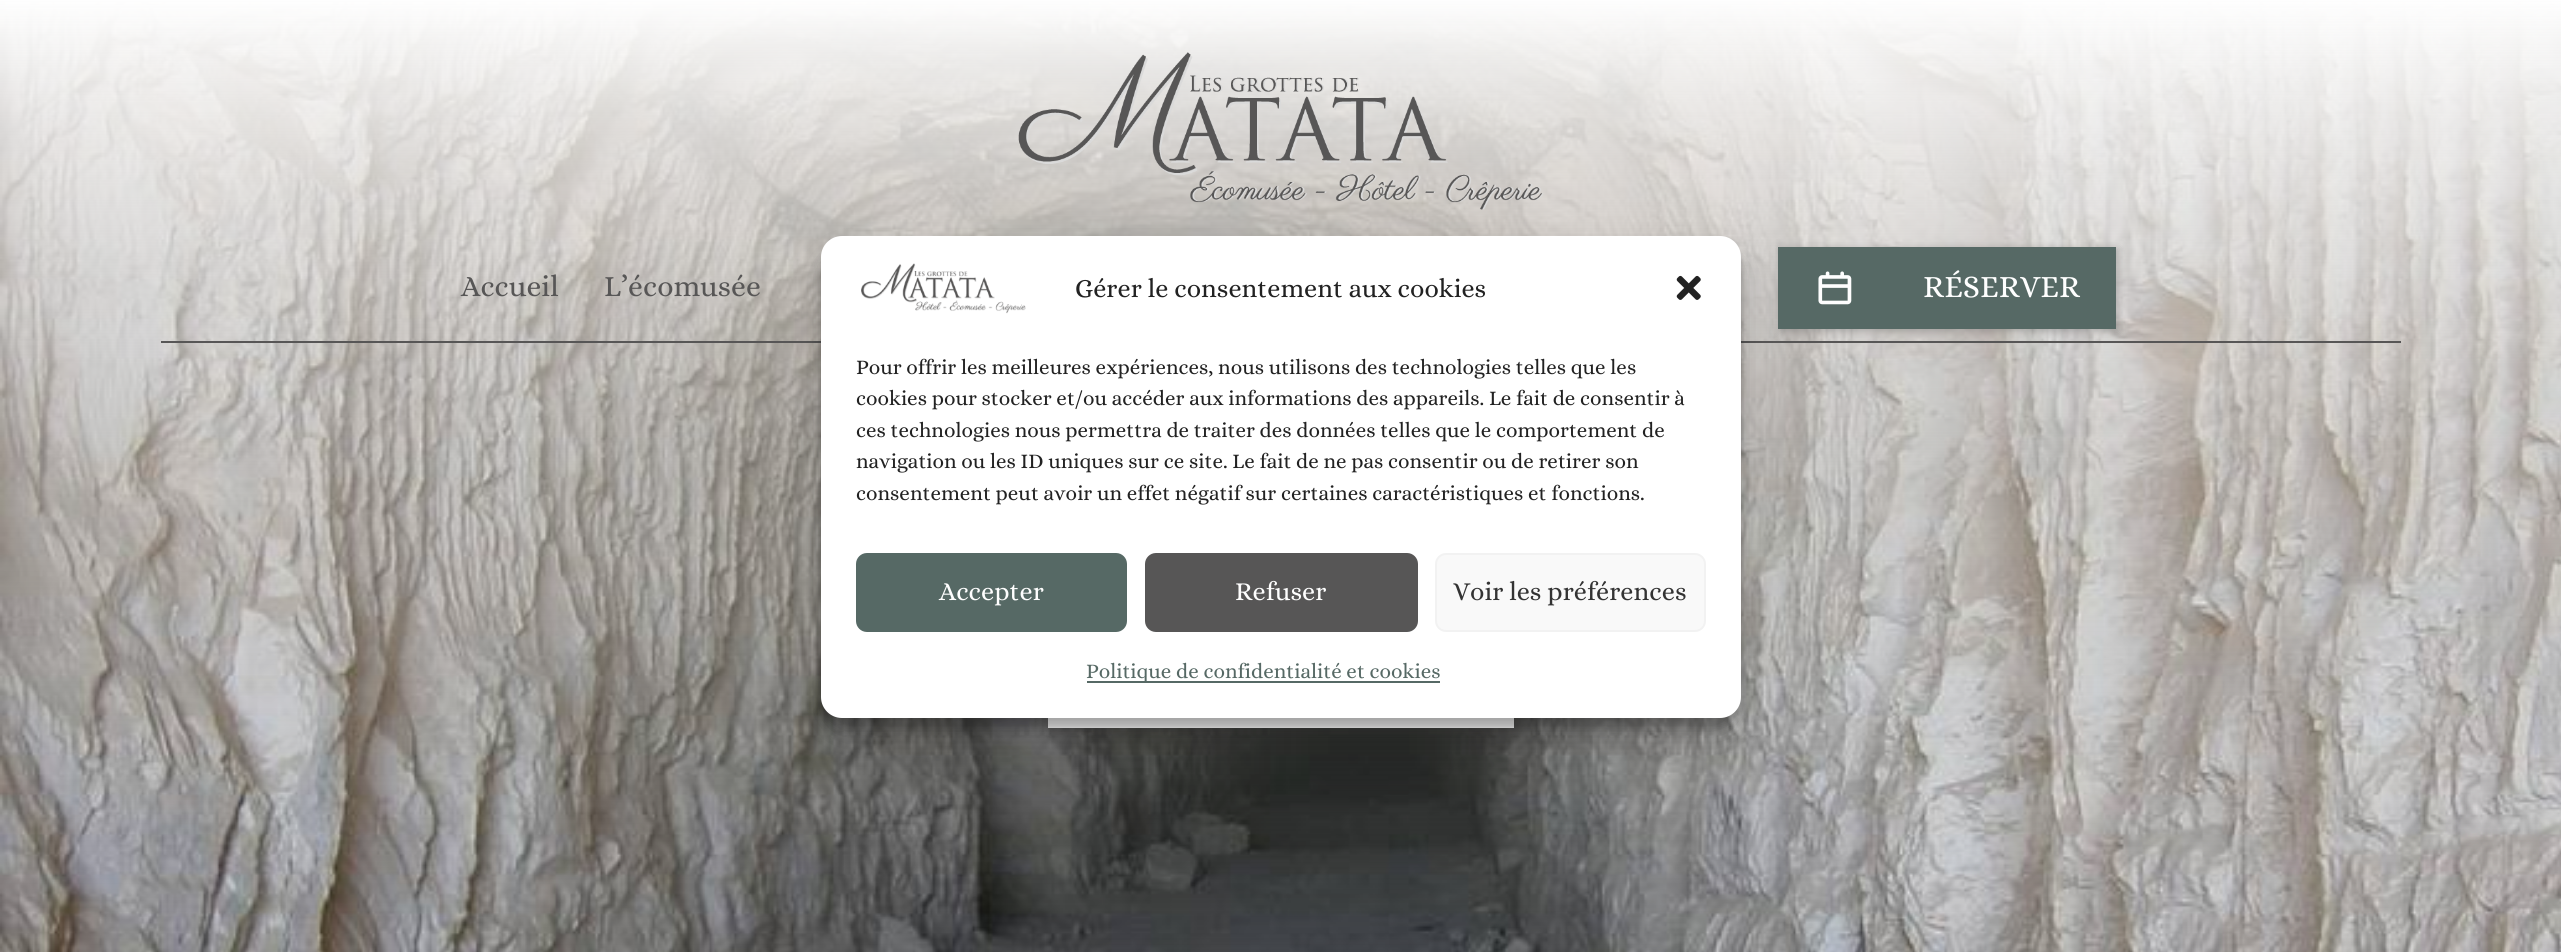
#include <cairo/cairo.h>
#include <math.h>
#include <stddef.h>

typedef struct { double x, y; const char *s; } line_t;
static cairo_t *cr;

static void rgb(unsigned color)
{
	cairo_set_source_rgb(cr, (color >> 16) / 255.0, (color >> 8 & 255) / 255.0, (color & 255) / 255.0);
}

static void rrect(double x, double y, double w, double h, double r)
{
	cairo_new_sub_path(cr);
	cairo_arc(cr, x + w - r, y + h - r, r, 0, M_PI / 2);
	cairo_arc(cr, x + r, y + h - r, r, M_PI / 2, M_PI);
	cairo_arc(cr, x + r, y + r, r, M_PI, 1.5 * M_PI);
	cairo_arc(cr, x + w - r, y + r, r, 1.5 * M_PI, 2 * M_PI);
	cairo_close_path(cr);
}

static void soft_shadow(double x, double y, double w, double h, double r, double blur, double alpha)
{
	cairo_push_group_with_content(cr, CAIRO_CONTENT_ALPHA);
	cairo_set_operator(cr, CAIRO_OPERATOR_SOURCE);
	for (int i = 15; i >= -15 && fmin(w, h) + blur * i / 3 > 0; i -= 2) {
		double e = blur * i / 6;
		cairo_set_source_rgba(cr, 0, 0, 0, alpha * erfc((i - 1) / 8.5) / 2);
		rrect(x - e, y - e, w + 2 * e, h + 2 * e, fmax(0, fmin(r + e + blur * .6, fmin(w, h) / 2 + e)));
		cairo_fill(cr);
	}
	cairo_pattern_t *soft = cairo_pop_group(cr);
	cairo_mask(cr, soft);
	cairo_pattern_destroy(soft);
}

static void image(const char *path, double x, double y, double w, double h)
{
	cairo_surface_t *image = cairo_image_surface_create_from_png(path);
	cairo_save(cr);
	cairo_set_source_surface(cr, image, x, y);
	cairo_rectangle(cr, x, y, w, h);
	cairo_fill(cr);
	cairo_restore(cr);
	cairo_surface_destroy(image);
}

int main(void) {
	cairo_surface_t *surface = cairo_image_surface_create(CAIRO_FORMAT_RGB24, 2561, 952);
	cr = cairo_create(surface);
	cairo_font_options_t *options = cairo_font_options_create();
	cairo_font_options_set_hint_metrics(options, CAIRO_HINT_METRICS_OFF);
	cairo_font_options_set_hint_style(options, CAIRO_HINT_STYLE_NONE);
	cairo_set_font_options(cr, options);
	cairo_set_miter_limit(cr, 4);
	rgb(0xffffff);
	cairo_paint(cr);
	image("img/1.png", 0, 0, 2561, 952);
	rgb(0x575656);
	soft_shadow(1050, 648, 466, 82, 0, 4.5, 0.4);
	rgb(0xfefefe);
	cairo_rectangle(cr, 1048, 718, 466, 10);
	cairo_fill(cr);
	rgb(0x575656);
	cairo_rectangle(cr, 161, 341, 2240, 2);
	cairo_fill(cr);
	image("img/2.png", 1018, 52, 526, 158);
	rgb(0x575656);
	soft_shadow(1780, 249, 338, 82, 0, 4.5, 0.4);
	rgb(0x566965);
	cairo_rectangle(cr, 1778, 247, 338, 82);
	cairo_fill(cr);
	image("img/3.png", 1818, 271, 34, 34);
	rgb(0x000000);
	soft_shadow(821, 247, 920, 481, 21, 5, 0.23);
	soft_shadow(821, 254, 920, 481, 21, 17.5, 0.19);
	rgb(0xffffff);
	rrect(821, 236, 920, 482, 21);
	cairo_fill(cr);
	image("img/4.png", 861, 263, 165, 51);
	image("img/5.png", 1676, 275, 25, 25);
	rgb(0x566965);
	rrect(857, 554, 269, 77, 10);
	cairo_fill_preserve(cr);
	cairo_stroke(cr);
	rgb(0x575656);
	rrect(1146, 554, 271, 77, 10);
	cairo_fill_preserve(cr);
	cairo_stroke(cr);
	rgb(0xf9f9f9);
	rrect(1436, 554, 269, 77, 10);
	cairo_fill_preserve(cr);
	rgb(0xf2f2f2);
	cairo_stroke(cr);
	rgb(0x566965);
	cairo_rectangle(cr, 1087, 681, 353, 2);
	cairo_fill(cr);
	cairo_select_font_face(cr, "Alice", CAIRO_FONT_SLANT_NORMAL, CAIRO_FONT_WEIGHT_NORMAL);
	cairo_set_font_size(cr, 29.75);
	rgb(0x575656);
	cairo_move_to(cr, 461, 296);
	cairo_show_text(cr, "Accueil");
	cairo_move_to(cr, 604, 296);
	cairo_show_text(cr, "L’écomusée");
	cairo_set_font_size(cr, 31.5);
	rgb(0xfefefe);
	cairo_move_to(cr, 1923, 297);
	cairo_show_text(cr, "RÉSERVER");
	cairo_set_font_size(cr, 26.25);
	rgb(0x222222);
	cairo_move_to(cr, 1075, 297);
	cairo_show_text(cr, "Gérer le consentement aux cookies");
	cairo_set_font_size(cr, 21);
	{
		static const line_t items[] = {
			{856, 374, "Pour offrir les meilleures expériences, nous utilisons des technologies telles que les"},
			{856, 405, "cookies pour stocker et/ou accéder aux informations des appareils. Le fait de consentir à"},
			{856, 437, "ces technologies nous permettra de traiter des données telles que le comportement de"},
			{856, 468, "navigation ou les ID uniques sur ce site. Le fait de ne pas consentir ou de retirer son"},
			{856, 500, "consentement peut avoir un effet négatif sur certaines caractéristiques et fonctions."},
		};
		for (size_t i = 0; i < sizeof items / sizeof *items; i++) {
			cairo_move_to(cr, items[i].x, items[i].y);
			cairo_show_text(cr, items[i].s);
		}
	}
	cairo_set_font_size(cr, 26.25);
	rgb(0xfefefe);
	cairo_move_to(cr, 939, 600);
	cairo_show_text(cr, "Accepter");
	cairo_move_to(cr, 1235, 600);
	cairo_show_text(cr, "Refuser");
	rgb(0x333333);
	cairo_move_to(cr, 1453, 600);
	cairo_show_text(cr, "Voir les préférences");
	cairo_set_font_size(cr, 21);
	rgb(0x566965);
	cairo_move_to(cr, 1086, 678);
	cairo_show_text(cr, "Politique de confidentialité et cookies");
	cairo_surface_write_to_png(surface, "page.png");
	cairo_font_options_destroy(options);
	cairo_destroy(cr);
	cairo_surface_destroy(surface);
	return 0;
}
